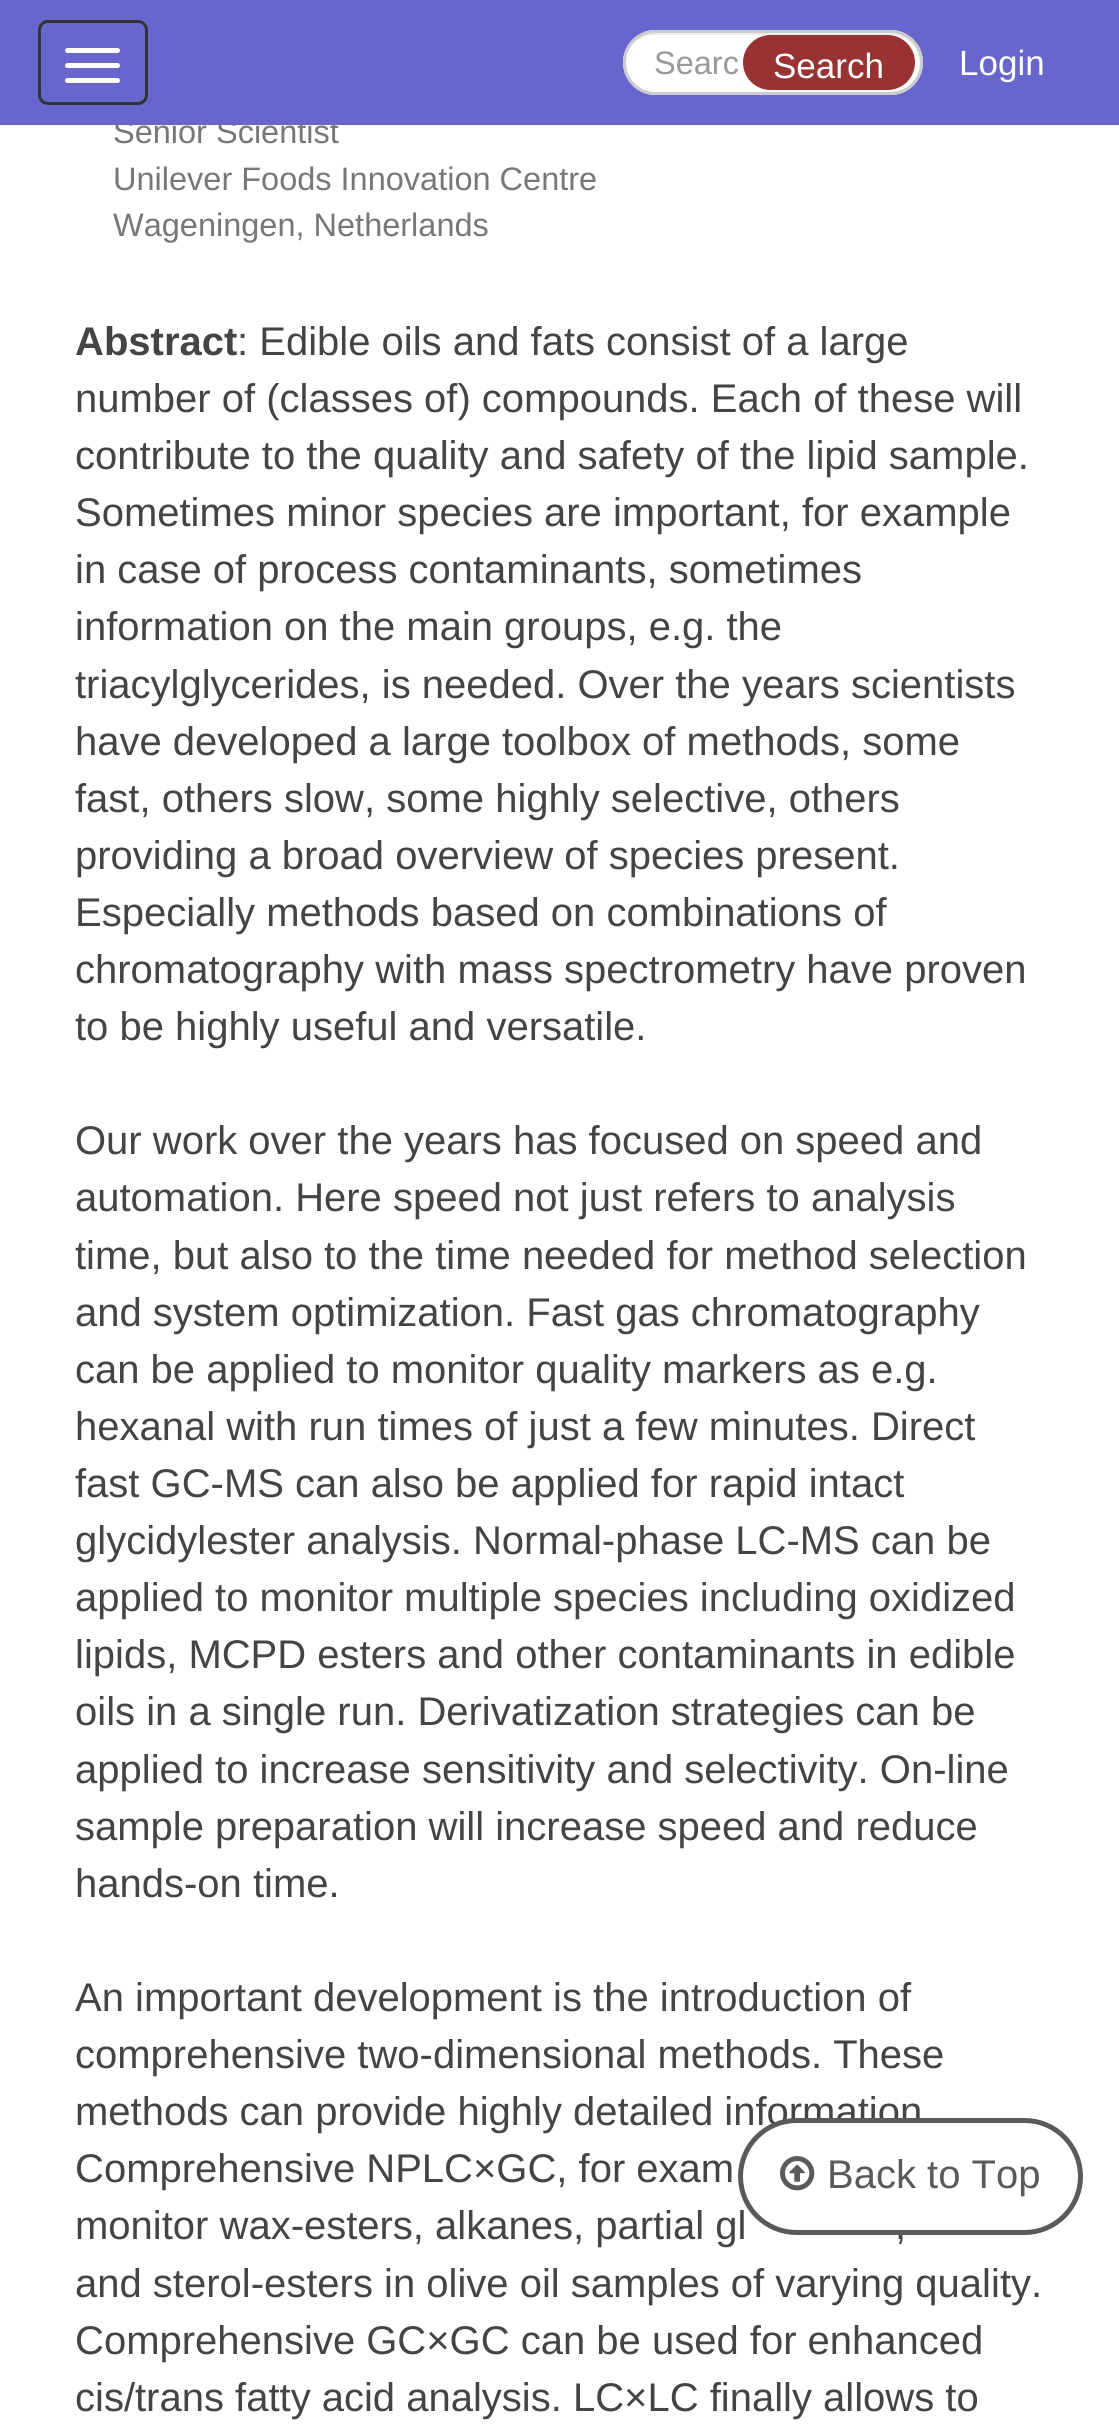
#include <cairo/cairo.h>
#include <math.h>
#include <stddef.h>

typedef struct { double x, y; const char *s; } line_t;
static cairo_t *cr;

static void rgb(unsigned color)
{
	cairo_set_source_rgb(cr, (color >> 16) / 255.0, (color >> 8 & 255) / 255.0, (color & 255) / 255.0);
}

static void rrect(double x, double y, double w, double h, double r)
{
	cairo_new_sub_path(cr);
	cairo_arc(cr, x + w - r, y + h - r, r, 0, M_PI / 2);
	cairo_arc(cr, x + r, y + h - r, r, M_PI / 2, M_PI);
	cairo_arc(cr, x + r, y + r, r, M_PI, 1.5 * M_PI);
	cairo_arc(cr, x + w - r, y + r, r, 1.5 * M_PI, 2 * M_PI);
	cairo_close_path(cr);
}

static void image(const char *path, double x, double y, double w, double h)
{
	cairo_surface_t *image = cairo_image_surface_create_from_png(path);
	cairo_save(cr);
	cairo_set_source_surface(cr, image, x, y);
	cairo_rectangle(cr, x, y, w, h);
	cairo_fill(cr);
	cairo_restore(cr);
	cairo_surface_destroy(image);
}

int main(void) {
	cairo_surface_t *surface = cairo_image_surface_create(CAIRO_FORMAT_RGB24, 1119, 2434);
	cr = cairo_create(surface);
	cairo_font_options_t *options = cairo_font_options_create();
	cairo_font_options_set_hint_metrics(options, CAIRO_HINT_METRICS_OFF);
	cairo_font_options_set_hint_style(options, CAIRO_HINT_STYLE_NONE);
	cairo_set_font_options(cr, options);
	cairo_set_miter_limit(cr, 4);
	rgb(0xffffff);
	cairo_paint(cr);
	cairo_select_font_face(cr, "Liberation Sans", CAIRO_FONT_SLANT_NORMAL, CAIRO_FONT_WEIGHT_NORMAL);
	cairo_set_font_size(cr, 32.5);
	rgb(0x777777);
	cairo_move_to(cr, 113, 143);
	cairo_show_text(cr, "Senior Scientist");
	rgb(0x6666cc);
	cairo_rectangle(cr, 0, 0, 1119, 125);
	cairo_fill(cr);
	rgb(0xffffff);
	rrect(623, 30, 300, 65, 32.5);
	cairo_fill(cr);
	rgb(0xececec);
	cairo_new_path(cr);
	cairo_move_to(cr, 655, 35);
	cairo_line_to(cr, 890, 35);
	cairo_curve_to(cr, 907, 35, 919, 47, 920, 64);
	cairo_line_to(cr, 920, 63);
	cairo_curve_to(cr, 920, 46, 907, 33, 890, 33);
	cairo_line_to(cr, 655, 33);
	cairo_curve_to(cr, 638, 33, 625, 46, 625, 63);
	cairo_line_to(cr, 625, 64);
	cairo_curve_to(cr, 626, 47, 638, 35, 655, 35);
	cairo_close_path(cr);
	cairo_fill(cr);
	rrect(624.5, 31.5, 297, 62, 31);
	rgb(0xcccccc);
	cairo_set_line_width(cr, 3);
	cairo_stroke(cr);
	rgb(0x993333);
	rrect(743, 35, 172, 55, 27.5);
	cairo_fill(cr);
	cairo_set_font_size(cr, 35);
	rgb(0xffffff);
	cairo_move_to(cr, 773, 78);
	cairo_show_text(cr, "Search");
	cairo_set_font_size(cr, 32.5);
	rgb(0x999999);
	cairo_move_to(cr, 654, 74);
	cairo_show_text(cr, "Searc");
	rrect(39.5, 21.5, 107, 82, 8.5);
	rgb(0x333333);
	cairo_stroke(cr);
	rgb(0xffffff);
	rrect(65, 78, 55, 5, 2.5);
	cairo_fill(cr);
	rrect(65, 63, 55, 5, 2.5);
	cairo_fill(cr);
	rrect(65, 48, 55, 5, 2.5);
	cairo_fill(cr);
	cairo_set_font_size(cr, 35);
	cairo_move_to(cr, 959, 75);
	cairo_show_text(cr, "Login");
	cairo_set_font_size(cr, 32.5);
	rgb(0x777777);
	cairo_move_to(cr, 113, 190);
	cairo_show_text(cr, "Unilever Foods Innovation Centre");
	cairo_move_to(cr, 113, 236);
	cairo_show_text(cr, "Wageningen, Netherlands");
	cairo_select_font_face(cr, "Liberation Sans", CAIRO_FONT_SLANT_NORMAL, CAIRO_FONT_WEIGHT_BOLD);
	cairo_set_font_size(cr, 40);
	rgb(0x444444);
	cairo_move_to(cr, 75, 355);
	cairo_show_text(cr, "Abstract");
	cairo_select_font_face(cr, "Liberation Sans", CAIRO_FONT_SLANT_NORMAL, CAIRO_FONT_WEIGHT_NORMAL);
	{
		static const line_t items[] = {
			{237, 355, ": Edible oils and fats consist of a large"},
			{75, 412, "number of (classes of) compounds. Each of these will"},
			{75, 469, "contribute to the quality and safety of the lipid sample."},
			{75, 526, "Sometimes minor species are important, for example"},
			{75, 583, "in case of process contaminants, sometimes"},
			{75, 640, "information on the main groups, e.g. the"},
			{75, 698, "triacylglycerides, is needed. Over the years scientists"},
			{75, 755, "have developed a large toolbox of methods, some"},
			{75, 812, "fast, others slow, some highly selective, others"},
			{75, 869, "providing a broad overview of species present."},
			{75, 926, "Especially methods based on combinations of"},
			{75, 983, "chromatography with mass spectrometry have proven"},
			{75, 1040, "to be highly useful and versatile."},
			{75, 1154, "Our work over the years has focused on speed and"},
			{75, 1211, "automation. Here speed not just refers to analysis"},
			{75, 1269, "time, but also to the time needed for method selection"},
			{75, 1326, "and system optimization. Fast gas chromatography"},
			{75, 1383, "can be applied to monitor quality markers as e.g."},
			{75, 1440, "hexanal with run times of just a few minutes. Direct"},
			{75, 1497, "fast GC-MS can also be applied for rapid intact"},
			{75, 1554, "glycidylester analysis. Normal-phase LC-MS can be"},
			{75, 1611, "applied to monitor multiple species including oxidized"},
			{75, 1668, "lipids, MCPD esters and other contaminants in edible"},
			{75, 1725, "oils in a single run. Derivatization strategies can be"},
			{75, 1783, "applied to increase sensitivity and selectivity. On-line"},
			{75, 1840, "sample preparation will increase speed and reduce"},
			{75, 1897, "hands-on time."},
			{75, 2011, "An important development is the introduction of"},
			{75, 2068, "comprehensive two-dimensional methods. These"},
			{75, 2125, "methods can provide highly detailed information"},
			{75, 2182, "Comprehensive NPLC×GC, for exam"},
			{75, 2239, "monitor wax-esters, alkanes, partial gl"},
			{895, 2239, ","},
			{75, 2297, "and sterol-esters in olive oil samples of varying quality."},
			{75, 2354, "Comprehensive GC×GC can be used for enhanced"},
			{75, 2411, "cis/trans fatty acid analysis. LC×LC finally allows to"},
		};
		for (size_t i = 0; i < sizeof items / sizeof *items; i++) {
			cairo_move_to(cr, items[i].x, items[i].y);
			cairo_show_text(cr, items[i].s);
		}
	}
	rgb(0xffffff);
	rrect(740.5, 2120.5, 340, 112, 56);
	cairo_fill_preserve(cr);
	rgb(0x5a5a5a);
	cairo_set_line_width(cr, 5);
	cairo_stroke(cr);
	image("img/1.png", 780, 2156, 35, 35);
	cairo_move_to(cr, 827, 2188);
	cairo_show_text(cr, "Back to Top");
	cairo_surface_write_to_png(surface, "page.png");
	cairo_font_options_destroy(options);
	cairo_destroy(cr);
	cairo_surface_destroy(surface);
	return 0;
}
